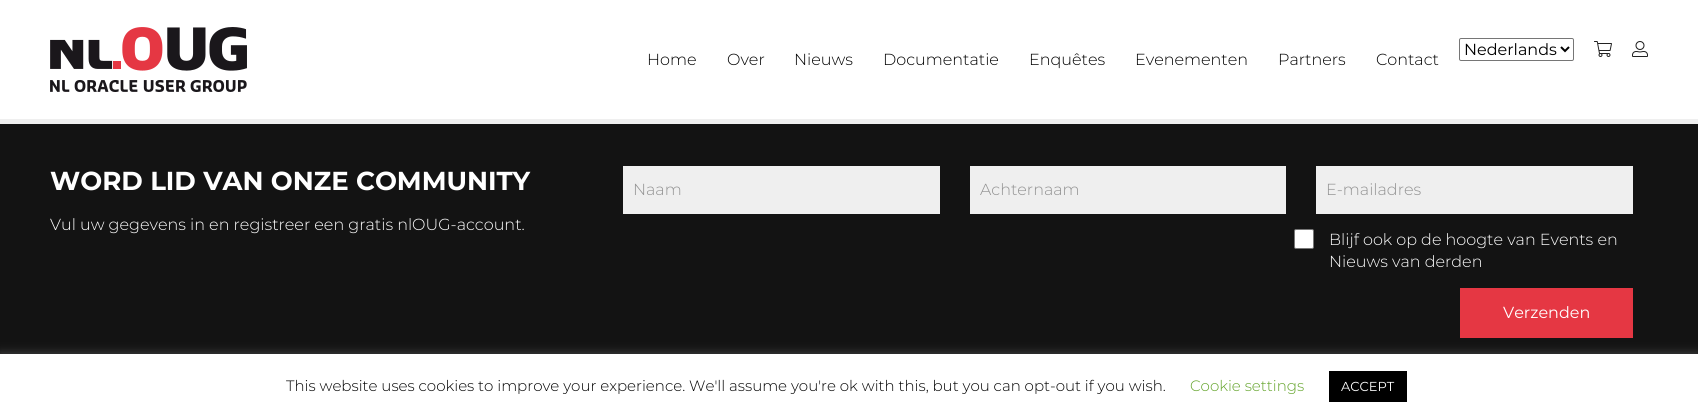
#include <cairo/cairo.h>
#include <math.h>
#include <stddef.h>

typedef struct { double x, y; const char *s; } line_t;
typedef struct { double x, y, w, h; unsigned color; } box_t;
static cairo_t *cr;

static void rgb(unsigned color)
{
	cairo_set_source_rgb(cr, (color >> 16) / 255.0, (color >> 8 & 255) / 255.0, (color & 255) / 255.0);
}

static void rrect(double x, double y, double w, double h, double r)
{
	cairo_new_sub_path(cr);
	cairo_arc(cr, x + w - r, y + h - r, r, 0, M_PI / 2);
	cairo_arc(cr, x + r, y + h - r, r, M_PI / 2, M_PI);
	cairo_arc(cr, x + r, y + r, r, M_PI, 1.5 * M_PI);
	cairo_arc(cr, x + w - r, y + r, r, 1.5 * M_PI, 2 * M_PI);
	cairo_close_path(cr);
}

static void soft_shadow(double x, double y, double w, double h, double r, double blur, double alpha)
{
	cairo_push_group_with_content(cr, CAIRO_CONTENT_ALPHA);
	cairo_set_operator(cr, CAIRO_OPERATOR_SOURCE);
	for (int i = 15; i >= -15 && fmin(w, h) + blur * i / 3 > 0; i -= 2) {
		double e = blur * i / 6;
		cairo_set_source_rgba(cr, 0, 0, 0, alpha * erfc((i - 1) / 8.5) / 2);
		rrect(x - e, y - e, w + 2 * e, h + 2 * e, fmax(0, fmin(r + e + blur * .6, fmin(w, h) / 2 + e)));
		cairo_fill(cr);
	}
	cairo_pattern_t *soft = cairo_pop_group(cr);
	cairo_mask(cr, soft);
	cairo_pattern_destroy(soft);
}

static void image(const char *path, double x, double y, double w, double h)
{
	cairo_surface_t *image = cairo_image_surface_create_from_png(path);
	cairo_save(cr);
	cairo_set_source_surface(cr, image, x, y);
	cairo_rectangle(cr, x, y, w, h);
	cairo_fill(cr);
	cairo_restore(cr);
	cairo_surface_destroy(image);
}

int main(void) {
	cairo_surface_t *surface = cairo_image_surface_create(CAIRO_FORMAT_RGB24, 1698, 419);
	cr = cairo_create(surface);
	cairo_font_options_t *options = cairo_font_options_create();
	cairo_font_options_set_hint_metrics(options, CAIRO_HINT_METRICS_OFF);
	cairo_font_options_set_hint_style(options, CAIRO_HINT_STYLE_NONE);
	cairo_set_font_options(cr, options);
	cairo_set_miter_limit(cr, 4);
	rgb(0xffffff);
	cairo_paint(cr);
	rgb(0xefefef);
	cairo_rectangle(cr, 0, 119, 1698, 5);
	cairo_fill(cr);
	image("img/1.png", 50, 27, 197, 65);
	rrect(1459.5, 38.5, 114, 22, 1.5);
	rgb(0x767676);
	cairo_set_line_width(cr, 1);
	cairo_stroke(cr);
	cairo_new_path(cr);
	cairo_move_to(cr, 1561, 47);
	cairo_line_to(cr, 1565, 51);
	cairo_line_to(cr, 1569, 47);
	rgb(0x000000);
	cairo_set_line_width(cr, 2);
	cairo_stroke(cr);
	image("img/2.png", 1594, 41, 18, 16);
	image("img/3.png", 1632, 41, 16, 16);
	{
		static const box_t items[] = {
			{0, 124, 1698, 230, 0x131313},
			{623, 166, 317, 48, 0xefefef},
			{970, 166, 316, 48, 0xefefef},
			{1316, 166, 317, 48, 0xefefef},
		};
		for (size_t i = 0; i < sizeof items / sizeof *items; i++) {
			rgb(items[i].color);
			cairo_rectangle(cr, items[i].x, items[i].y, items[i].w, items[i].h);
			cairo_fill(cr);
		}
	}
	rgb(0xffffff);
	rrect(1294.5, 229.5, 19, 19, 1.5);
	cairo_fill_preserve(cr);
	rgb(0x767676);
	cairo_set_line_width(cr, 1);
	cairo_stroke(cr);
	rgb(0xe53743);
	cairo_rectangle(cr, 1460, 288, 173, 50);
	cairo_fill(cr);
	rgb(0xacabab);
	soft_shadow(0, 353, 1698, 65, 0, 5, 0.3);
	rgb(0xffffff);
	cairo_rectangle(cr, 0, 354, 1698, 65);
	cairo_fill(cr);
	rgb(0x000000);
	cairo_rectangle(cr, 1329, 371, 78, 31);
	cairo_fill(cr);
	cairo_select_font_face(cr, "Montserrat", CAIRO_FONT_SLANT_NORMAL, CAIRO_FONT_WEIGHT_NORMAL);
	cairo_set_font_size(cr, 16);
	cairo_move_to(cr, 1464, 55);
	cairo_show_text(cr, "Nederlands");
	cairo_select_font_face(cr, "Montserrat Light", CAIRO_FONT_SLANT_NORMAL, CAIRO_FONT_WEIGHT_NORMAL);
	{
		static const line_t items[] = {
			{647, 65, "Home"},
			{727, 65, "Over"},
			{794, 65, "Nieuws"},
			{883, 65, "Documentatie"},
			{1029, 65, "Enquêtes"},
			{1135, 65, "Evenementen"},
			{1278, 65, "Partners"},
			{1376, 65, "Contact"},
		};
		for (size_t i = 0; i < sizeof items / sizeof *items; i++) {
			cairo_move_to(cr, items[i].x, items[i].y);
			cairo_show_text(cr, items[i].s);
		}
	}
	cairo_select_font_face(cr, "Montserrat", CAIRO_FONT_SLANT_NORMAL, CAIRO_FONT_WEIGHT_BOLD);
	cairo_set_font_size(cr, 26);
	rgb(0xffffff);
	cairo_move_to(cr, 50, 190);
	cairo_show_text(cr, "WORD LID VAN ONZE COMMUNITY");
	cairo_select_font_face(cr, "Montserrat Light", CAIRO_FONT_SLANT_NORMAL, CAIRO_FONT_WEIGHT_NORMAL);
	cairo_set_font_size(cr, 16);
	cairo_move_to(cr, 50, 230);
	cairo_show_text(cr, "Vul uw gegevens in en registreer een gratis nlOUG-account.");
	rgb(0x929292);
	{
		static const line_t items[] = {
			{633, 195, "Naam"},
			{980, 195, "Achternaam"},
			{1326, 195, "E-mailadres"},
		};
		for (size_t i = 0; i < sizeof items / sizeof *items; i++) {
			cairo_move_to(cr, items[i].x, items[i].y);
			cairo_show_text(cr, items[i].s);
		}
	}
	rgb(0xffffff);
	cairo_move_to(cr, 1329, 245);
	cairo_show_text(cr, "Blijf ook op de hoogte van Events en");
	cairo_move_to(cr, 1329, 267);
	cairo_show_text(cr, "Nieuws van derden");
	cairo_select_font_face(cr, "Montserrat", CAIRO_FONT_SLANT_NORMAL, CAIRO_FONT_WEIGHT_NORMAL);
	cairo_move_to(cr, 1503, 318);
	cairo_show_text(cr, "Verzenden");
	cairo_select_font_face(cr, "Montserrat Light", CAIRO_FONT_SLANT_NORMAL, CAIRO_FONT_WEIGHT_NORMAL);
	cairo_set_font_size(cr, 15);
	rgb(0x000000);
	cairo_move_to(cr, 286, 391);
	cairo_show_text(cr, "This website uses cookies to improve your experience. We'll assume you're ok with this, but you can opt-out if you wish.");
	rgb(0x62a329);
	cairo_move_to(cr, 1190, 391);
	cairo_show_text(cr, "Cookie settings");
	cairo_select_font_face(cr, "Montserrat", CAIRO_FONT_SLANT_NORMAL, CAIRO_FONT_WEIGHT_NORMAL);
	cairo_set_font_size(cr, 13);
	rgb(0xffffff);
	cairo_move_to(cr, 1341, 391);
	cairo_show_text(cr, "ACCEPT");
	cairo_surface_write_to_png(surface, "page.png");
	cairo_font_options_destroy(options);
	cairo_destroy(cr);
	cairo_surface_destroy(surface);
	return 0;
}
